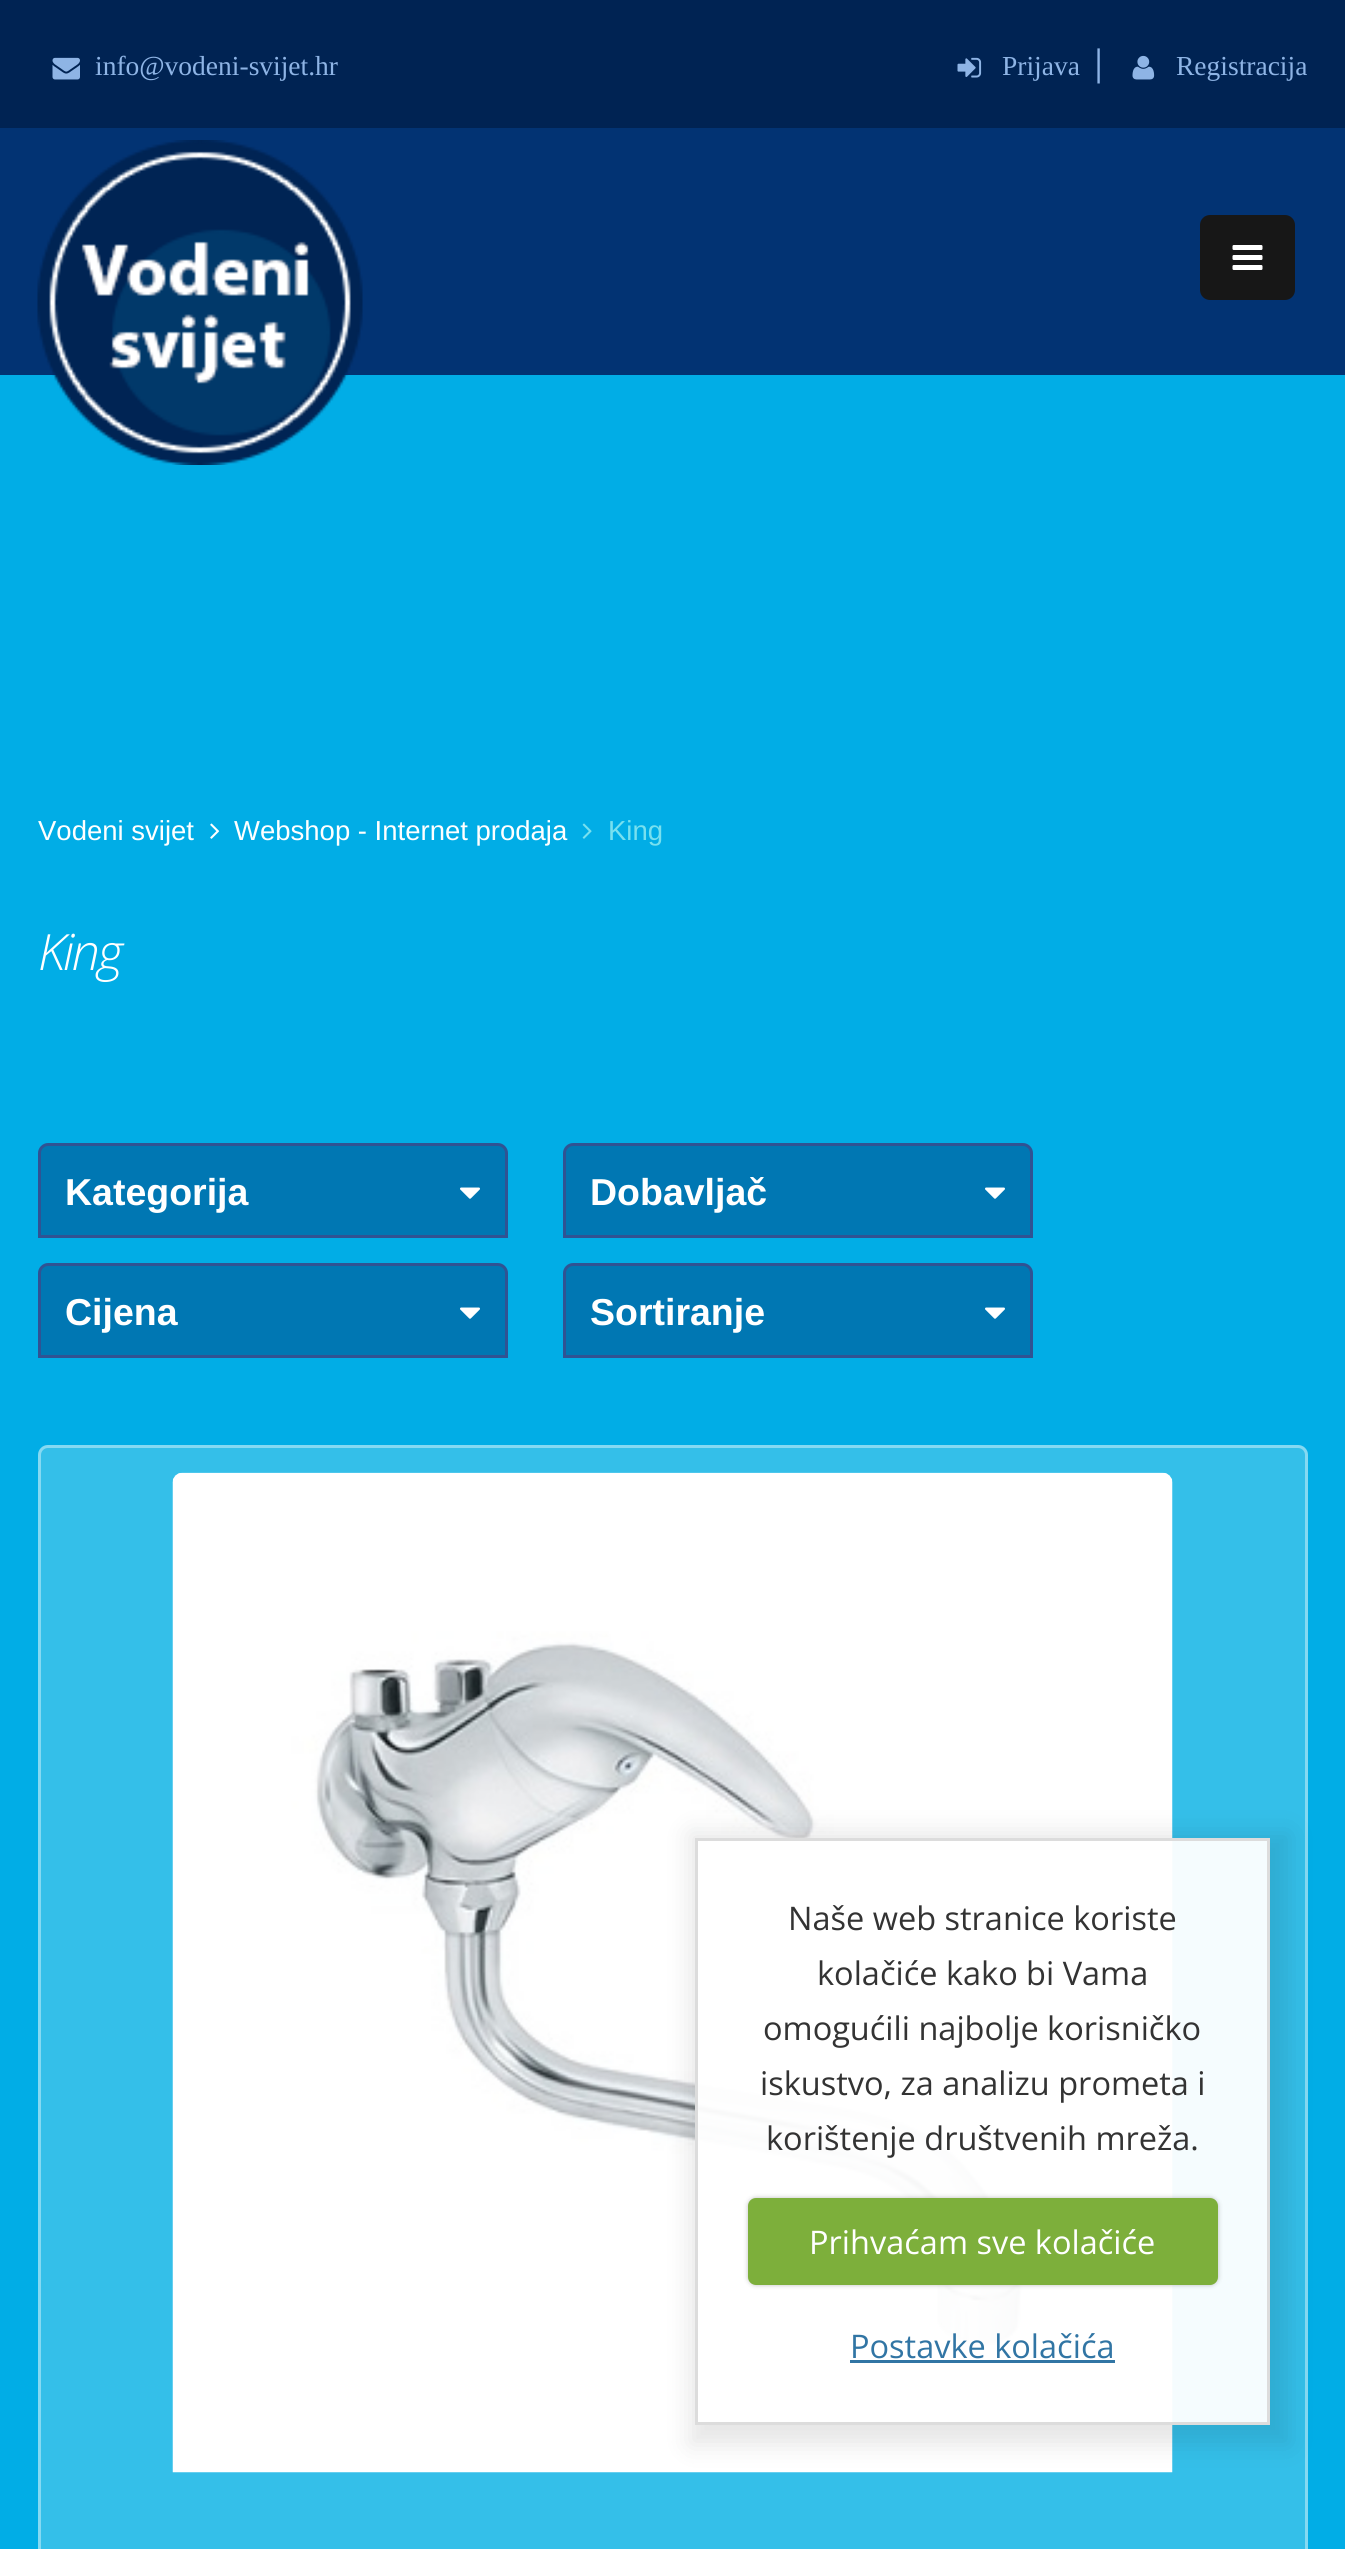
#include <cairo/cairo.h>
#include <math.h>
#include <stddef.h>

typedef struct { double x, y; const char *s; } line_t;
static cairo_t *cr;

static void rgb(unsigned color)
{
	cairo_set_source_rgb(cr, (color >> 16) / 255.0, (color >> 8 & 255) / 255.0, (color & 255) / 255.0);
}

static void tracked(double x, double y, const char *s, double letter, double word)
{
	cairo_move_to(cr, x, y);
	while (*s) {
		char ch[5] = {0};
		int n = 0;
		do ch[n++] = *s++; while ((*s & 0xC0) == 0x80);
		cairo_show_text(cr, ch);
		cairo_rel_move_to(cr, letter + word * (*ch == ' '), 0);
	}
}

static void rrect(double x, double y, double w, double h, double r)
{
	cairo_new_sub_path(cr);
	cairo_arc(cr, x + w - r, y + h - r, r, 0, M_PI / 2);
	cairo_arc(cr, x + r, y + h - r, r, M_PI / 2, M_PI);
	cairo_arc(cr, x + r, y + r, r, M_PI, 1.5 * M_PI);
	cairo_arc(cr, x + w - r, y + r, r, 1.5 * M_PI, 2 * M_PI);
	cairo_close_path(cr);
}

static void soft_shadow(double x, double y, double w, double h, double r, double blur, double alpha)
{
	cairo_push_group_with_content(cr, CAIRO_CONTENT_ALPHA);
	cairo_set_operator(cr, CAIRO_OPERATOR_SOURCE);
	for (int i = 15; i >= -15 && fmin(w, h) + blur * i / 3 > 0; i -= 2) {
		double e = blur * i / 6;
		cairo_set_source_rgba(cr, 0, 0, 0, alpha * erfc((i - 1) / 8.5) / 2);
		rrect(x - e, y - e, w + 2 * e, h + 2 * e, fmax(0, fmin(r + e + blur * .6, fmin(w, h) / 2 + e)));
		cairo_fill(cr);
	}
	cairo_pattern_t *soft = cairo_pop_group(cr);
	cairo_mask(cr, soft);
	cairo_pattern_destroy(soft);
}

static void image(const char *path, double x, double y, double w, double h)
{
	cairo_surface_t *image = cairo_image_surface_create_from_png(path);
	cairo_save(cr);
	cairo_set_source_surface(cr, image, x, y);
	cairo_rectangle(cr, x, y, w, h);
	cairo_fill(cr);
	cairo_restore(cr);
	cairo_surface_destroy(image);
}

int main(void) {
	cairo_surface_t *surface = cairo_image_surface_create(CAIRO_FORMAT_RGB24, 1345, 2549);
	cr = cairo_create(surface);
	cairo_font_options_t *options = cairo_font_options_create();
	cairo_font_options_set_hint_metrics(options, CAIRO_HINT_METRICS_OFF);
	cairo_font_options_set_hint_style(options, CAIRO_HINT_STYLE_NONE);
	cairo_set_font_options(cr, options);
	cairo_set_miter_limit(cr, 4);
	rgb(0x023373);
	cairo_paint(cr);
	rgb(0x002353);
	cairo_rectangle(cr, 0, 0, 1345, 128);
	cairo_fill(cr);
	image("img/1.png", 52, 57, 28, 23);
	image("img/2.png", 957, 57, 25, 21);
	image("img/3.png", 1132, 55, 23, 25);
	rgb(0x01ade6);
	cairo_rectangle(cr, 0, 375, 1345, 2174);
	cairo_fill(cr);
	image("img/4.png", 37, 140, 326, 325);
	rgb(0x171717);
	rrect(1200, 215, 95, 85, 10);
	cairo_fill(cr);
	image("img/5.png", 1232, 245, 31, 25);
	image("img/6.png", 210, 823, 10, 16);
	image("img/7.png", 582, 823, 10, 16);
	rgb(0x0077b3);
	cairo_new_path(cr);
	cairo_move_to(cr, 48, 1144.5);
	cairo_line_to(cr, 498, 1144.5);
	cairo_curve_to(cr, 502.5, 1144.5, 506.5, 1148.5, 506.5, 1153);
	cairo_line_to(cr, 506.5, 1236.5);
	cairo_line_to(cr, 39.5, 1236.5);
	cairo_line_to(cr, 39.5, 1153);
	cairo_curve_to(cr, 39.5, 1148.5, 43.5, 1144.5, 48, 1144.5);
	cairo_close_path(cr);
	cairo_fill_preserve(cr);
	rgb(0x305393);
	cairo_set_line_width(cr, 3);
	cairo_stroke(cr);
	image("img/8.png", 460, 1187, 20, 12);
	rgb(0x0077b3);
	cairo_new_path(cr);
	cairo_move_to(cr, 573, 1144.5);
	cairo_line_to(cr, 1023, 1144.5);
	cairo_curve_to(cr, 1027.5, 1144.5, 1031.5, 1148.5, 1031.5, 1153);
	cairo_line_to(cr, 1031.5, 1236.5);
	cairo_line_to(cr, 564.5, 1236.5);
	cairo_line_to(cr, 564.5, 1153);
	cairo_curve_to(cr, 564.5, 1148.5, 568.5, 1144.5, 573, 1144.5);
	cairo_close_path(cr);
	cairo_fill_preserve(cr);
	rgb(0x305393);
	cairo_stroke(cr);
	image("img/8.png", 985, 1187, 20, 12);
	rgb(0x0077b3);
	cairo_new_path(cr);
	cairo_move_to(cr, 48, 1264.5);
	cairo_line_to(cr, 498, 1264.5);
	cairo_curve_to(cr, 502.5, 1264.5, 506.5, 1268.5, 506.5, 1273);
	cairo_line_to(cr, 506.5, 1356.5);
	cairo_line_to(cr, 39.5, 1356.5);
	cairo_line_to(cr, 39.5, 1273);
	cairo_curve_to(cr, 39.5, 1268.5, 43.5, 1264.5, 48, 1264.5);
	cairo_close_path(cr);
	cairo_fill_preserve(cr);
	rgb(0x305393);
	cairo_stroke(cr);
	image("img/8.png", 460, 1307, 20, 12);
	rgb(0x0077b3);
	cairo_new_path(cr);
	cairo_move_to(cr, 573, 1264.5);
	cairo_line_to(cr, 1023, 1264.5);
	cairo_curve_to(cr, 1027.5, 1264.5, 1031.5, 1268.5, 1031.5, 1273);
	cairo_line_to(cr, 1031.5, 1356.5);
	cairo_line_to(cr, 564.5, 1356.5);
	cairo_line_to(cr, 564.5, 1273);
	cairo_curve_to(cr, 564.5, 1268.5, 568.5, 1264.5, 573, 1264.5);
	cairo_close_path(cr);
	cairo_fill_preserve(cr);
	rgb(0x305393);
	cairo_stroke(cr);
	image("img/8.png", 985, 1307, 20, 12);
	rgb(0x34bfe9);
	rrect(38, 1445, 1270, 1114, 10);
	cairo_fill(cr);
	rrect(39.5, 1446.5, 1267, 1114, 8.5);
	cairo_set_source_rgba(cr, 1, 1, 1, 0.4);
	cairo_stroke(cr);
	image("img/9.png", 172, 1472, 1001, 1001);
	cairo_save(cr);
	cairo_set_fill_rule(cr, CAIRO_FILL_RULE_EVEN_ODD);
	cairo_new_path(cr);
	cairo_move_to(cr, 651, 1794);
	cairo_line_to(cr, 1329, 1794);
	cairo_line_to(cr, 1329, 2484);
	cairo_line_to(cr, 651, 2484);
	cairo_close_path(cr);
	cairo_move_to(cr, 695, 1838);
	cairo_line_to(cr, 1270, 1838);
	cairo_line_to(cr, 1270, 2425);
	cairo_line_to(cr, 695, 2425);
	cairo_close_path(cr);
	cairo_clip(cr);
	rgb(0x000000);
	soft_shadow(690, 1833, 600, 612, 0, 12.5, 0.1);
	cairo_restore(cr);
	cairo_set_source_rgba(cr, 1, 1, 1, 0.95);
	cairo_rectangle(cr, 696.5, 1839.5, 572, 584);
	cairo_fill_preserve(cr);
	rgb(0xdcdcdc);
	cairo_stroke(cr);
	rgb(0x000000);
	soft_shadow(748, 2198, 470, 87, 8, 2.5, 0.25);
	rgb(0x7daf3b);
	rrect(748, 2198, 470, 87, 8);
	cairo_fill(cr);
	rgb(0x3175a4);
	cairo_rectangle(cr, 850, 2360, 265, 3);
	cairo_fill(cr);
	cairo_select_font_face(cr, "Liberation Serif", CAIRO_FONT_SLANT_NORMAL, CAIRO_FONT_WEIGHT_NORMAL);
	cairo_set_font_size(cr, 27.5);
	rgb(0x8eb4e5);
	cairo_move_to(cr, 95, 75);
	cairo_show_text(cr, "info@vodeni-svijet.hr");
	cairo_move_to(cr, 1002, 75);
	cairo_show_text(cr, "Prijava");
	cairo_select_font_face(cr, "Open Sans", CAIRO_FONT_SLANT_NORMAL, CAIRO_FONT_WEIGHT_NORMAL);
	cairo_set_font_size(cr, 35);
	cairo_move_to(cr, 1089, 75);
	cairo_show_text(cr, "|");
	cairo_select_font_face(cr, "Liberation Serif", CAIRO_FONT_SLANT_NORMAL, CAIRO_FONT_WEIGHT_NORMAL);
	cairo_set_font_size(cr, 27.5);
	cairo_move_to(cr, 1176, 75);
	cairo_show_text(cr, "Registracija");
	cairo_select_font_face(cr, "Liberation Sans", CAIRO_FONT_SLANT_NORMAL, CAIRO_FONT_WEIGHT_NORMAL);
	rgb(0xffffff);
	cairo_move_to(cr, 38, 840);
	cairo_show_text(cr, "Vodeni svijet");
	cairo_move_to(cr, 234, 840);
	cairo_show_text(cr, "Webshop - Internet prodaja");
	rgb(0x78e0ef);
	cairo_move_to(cr, 608, 840);
	cairo_show_text(cr, "King");
	cairo_select_font_face(cr, "Open Sans Light", CAIRO_FONT_SLANT_ITALIC, CAIRO_FONT_WEIGHT_NORMAL);
	cairo_set_font_size(cr, 50);
	rgb(0xffffff);
	tracked(38, 970, "King", -2.5, 0);
	cairo_select_font_face(cr, "Liberation Sans", CAIRO_FONT_SLANT_NORMAL, CAIRO_FONT_WEIGHT_BOLD);
	cairo_set_font_size(cr, 37.5);
	{
		static const line_t items[] = {
			{65, 1205, "Kategorija"},
			{590, 1205, "Dobavljač"},
			{65, 1325, "Cijena"},
			{590, 1325, "Sortiranje"},
		};
		for (size_t i = 0; i < sizeof items / sizeof *items; i++) {
			cairo_move_to(cr, items[i].x, items[i].y);
			cairo_show_text(cr, items[i].s);
		}
	}
	cairo_select_font_face(cr, "Open Sans", CAIRO_FONT_SLANT_NORMAL, CAIRO_FONT_WEIGHT_NORMAL);
	cairo_set_font_size(cr, 32.5);
	rgb(0x333333);
	{
		static const line_t items[] = {
			{788, 1930, "Naše web stranice koriste"},
			{817, 1985, "kolačiće kako bi Vama"},
			{763, 2040, "omogućili najbolje korisničko"},
			{760, 2095, "iskustvo, za analizu prometa i"},
			{766, 2150, "korištenje društvenih mreža."},
		};
		for (size_t i = 0; i < sizeof items / sizeof *items; i++) {
			cairo_move_to(cr, items[i].x, items[i].y);
			cairo_show_text(cr, items[i].s);
		}
	}
	rgb(0xffffff);
	cairo_move_to(cr, 809, 2254);
	cairo_show_text(cr, "Prihvaćam sve kolačiće");
	rgb(0x3175a4);
	cairo_move_to(cr, 850, 2358);
	cairo_show_text(cr, "Postavke kolačića");
	cairo_surface_write_to_png(surface, "page.png");
	cairo_font_options_destroy(options);
	cairo_destroy(cr);
	cairo_surface_destroy(surface);
	return 0;
}
